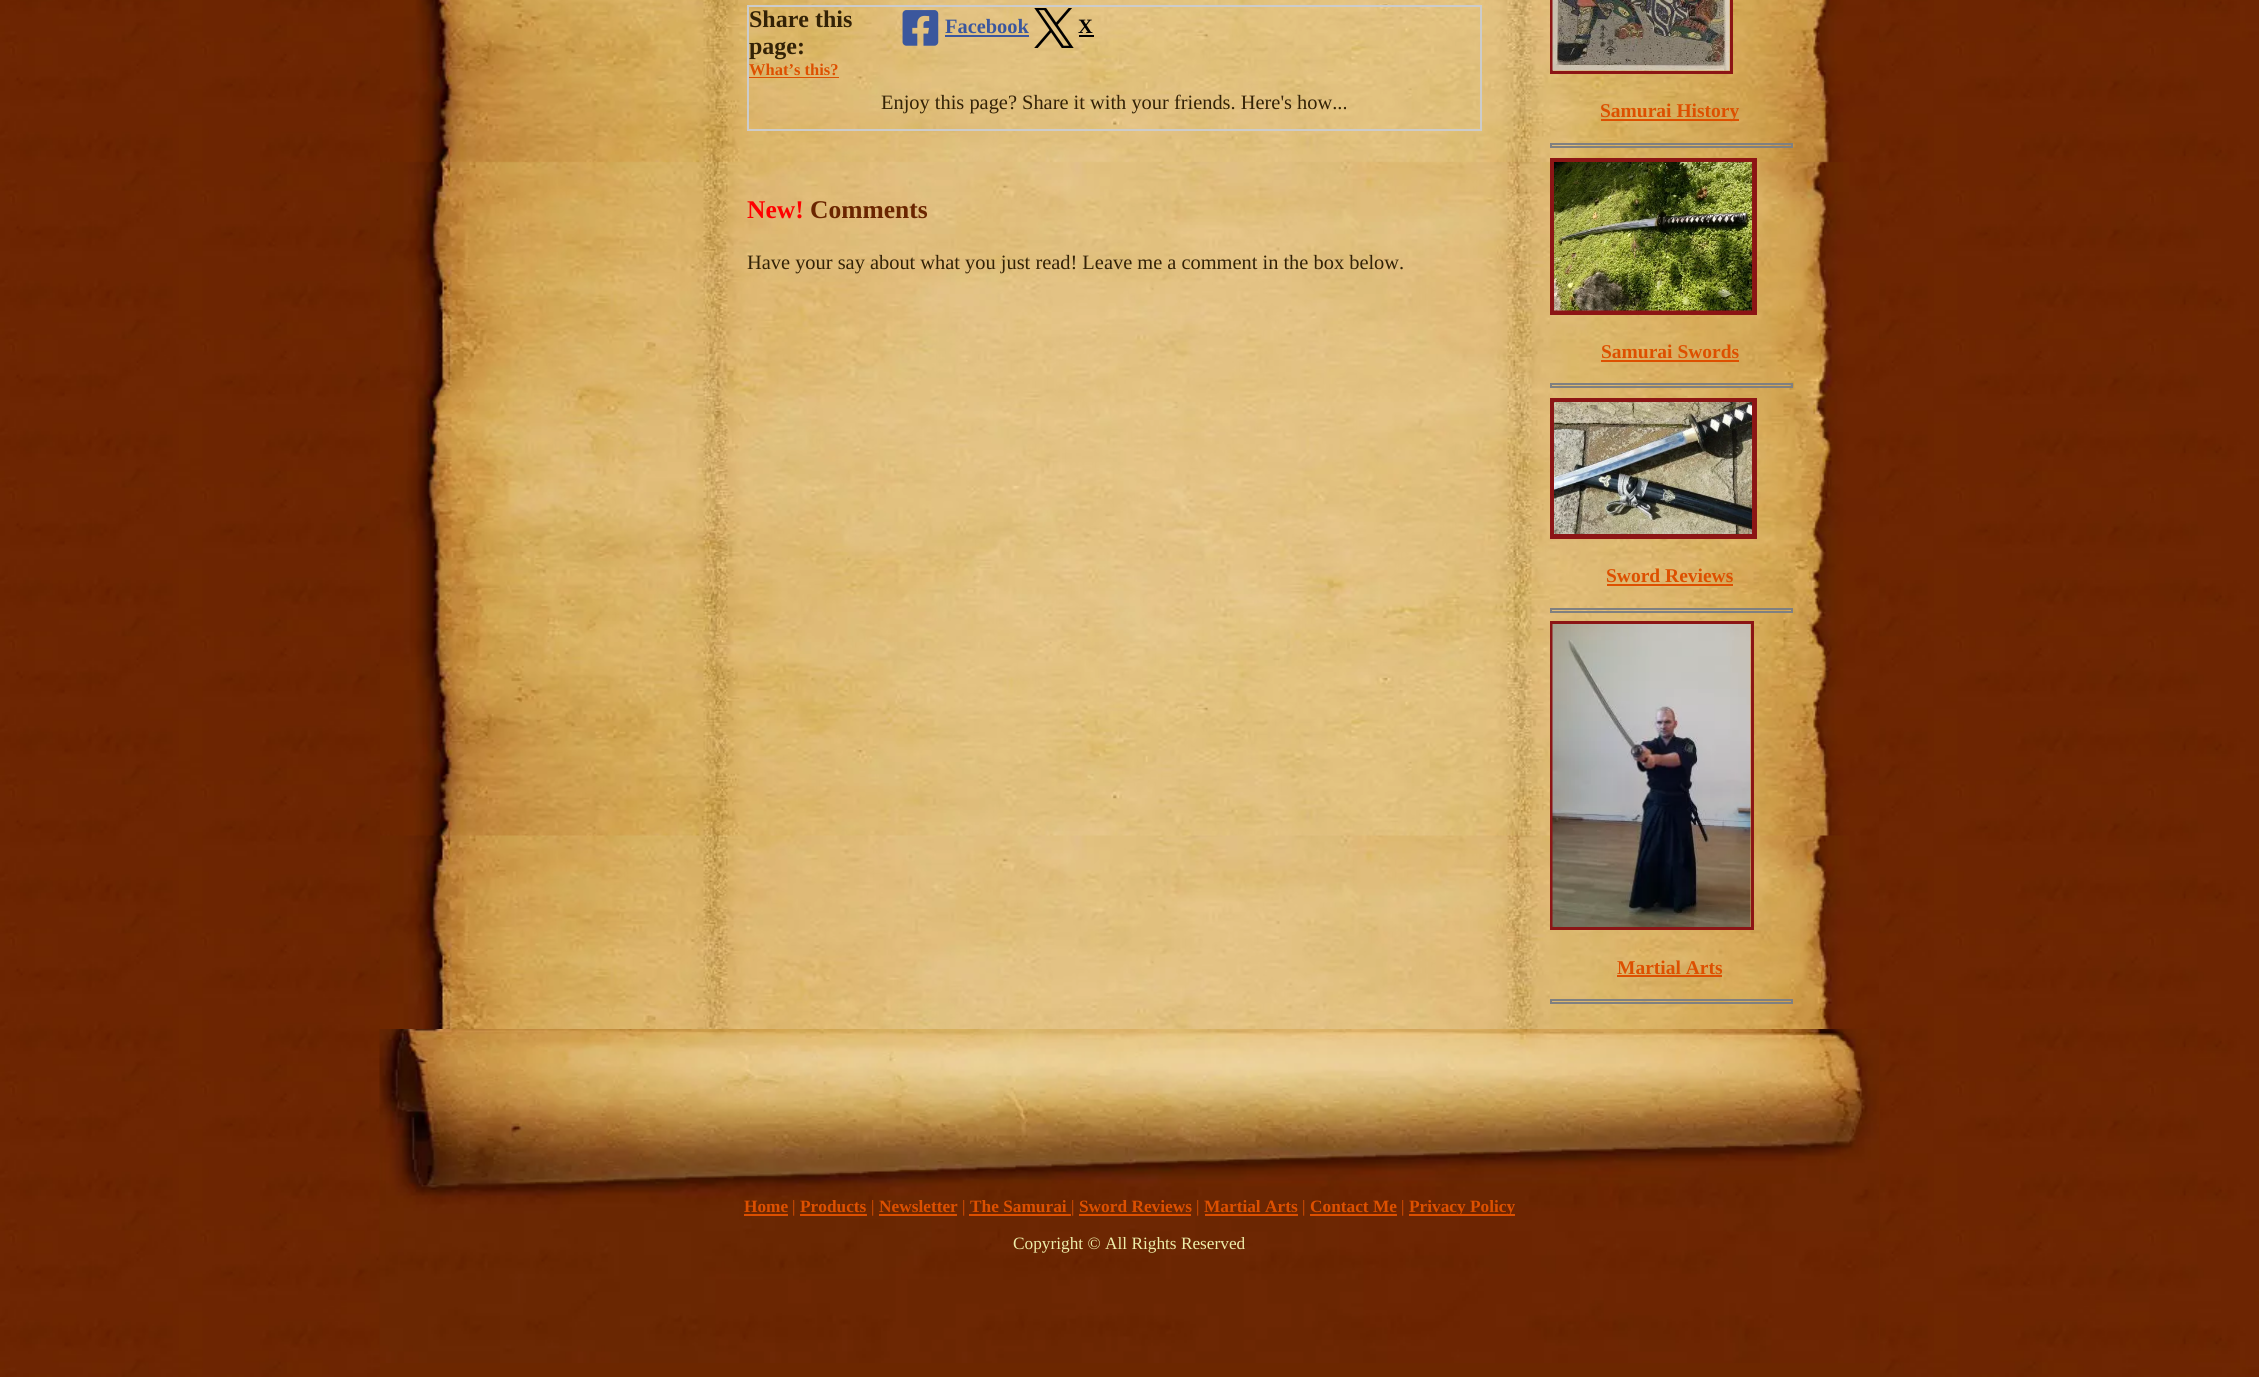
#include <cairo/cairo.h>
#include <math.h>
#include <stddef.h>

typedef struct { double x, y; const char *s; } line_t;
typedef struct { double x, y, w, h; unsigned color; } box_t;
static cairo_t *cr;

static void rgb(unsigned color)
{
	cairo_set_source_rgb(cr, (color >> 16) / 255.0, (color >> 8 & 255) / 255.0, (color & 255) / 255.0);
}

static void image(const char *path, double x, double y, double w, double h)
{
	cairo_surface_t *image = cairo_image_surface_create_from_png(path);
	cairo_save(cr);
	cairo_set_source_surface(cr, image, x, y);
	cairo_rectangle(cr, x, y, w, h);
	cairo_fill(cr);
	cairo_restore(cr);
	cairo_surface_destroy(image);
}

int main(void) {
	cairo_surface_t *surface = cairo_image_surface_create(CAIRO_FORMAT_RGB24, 2259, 1377);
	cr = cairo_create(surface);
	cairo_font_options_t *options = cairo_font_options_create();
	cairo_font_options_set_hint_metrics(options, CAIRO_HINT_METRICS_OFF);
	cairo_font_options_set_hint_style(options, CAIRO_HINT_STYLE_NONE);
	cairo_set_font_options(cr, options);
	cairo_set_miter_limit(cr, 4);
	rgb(0xffffff);
	cairo_paint(cr);
	image("img/1.png", 0, 0, 2259, 1377);
	image("img/2.png", 380, 0, 1499, 1029);
	cairo_rectangle(cr, 748, 6, 733, 124);
	rgb(0xcccccc);
	cairo_stroke(cr);
	rgb(0xdd5000);
	cairo_rectangle(cr, 749, 77, 90, 1);
	cairo_fill(cr);
	image("img/3.png", 902, 10, 37, 36);
	rgb(0x3b579d);
	cairo_rectangle(cr, 945, 35, 84, 2);
	cairo_fill(cr);
	image("img/4.png", 1034, 8, 40, 40);
	rgb(0x000000);
	cairo_rectangle(cr, 1079, 35, 15, 2);
	cairo_fill(cr);
	cairo_rectangle(cr, 1551.5, -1.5, 180, 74);
	rgb(0x8c1515);
	cairo_set_line_width(cr, 3);
	cairo_stroke(cr);
	image("img/5.png", 1552, 0, 178, 71);
	rgb(0xdd5000);
	cairo_rectangle(cr, 1601, 119, 138, 2);
	cairo_fill(cr);
	cairo_rectangle(cr, 1551, 144, 241, 3);
	rgb(0x808080);
	cairo_set_line_width(cr, 2);
	cairo_stroke(cr);
	cairo_rectangle(cr, 1552.5, 160.5, 202, 152);
	rgb(0x8c1515);
	cairo_set_line_width(cr, 5);
	cairo_stroke(cr);
	image("img/6.png", 1554, 162, 198, 149);
	rgb(0xdd5000);
	cairo_rectangle(cr, 1601, 360, 138, 2);
	cairo_fill(cr);
	cairo_rectangle(cr, 1551, 384, 241, 3);
	rgb(0x808080);
	cairo_set_line_width(cr, 2);
	cairo_stroke(cr);
	cairo_rectangle(cr, 1552.5, 400.5, 202, 136);
	rgb(0x8c1515);
	cairo_set_line_width(cr, 5);
	cairo_stroke(cr);
	image("img/7.png", 1554, 402, 198, 132);
	rgb(0xdd5000);
	cairo_rectangle(cr, 1607, 584, 126, 2);
	cairo_fill(cr);
	cairo_rectangle(cr, 1551, 609, 241, 3);
	rgb(0x808080);
	cairo_set_line_width(cr, 2);
	cairo_stroke(cr);
	cairo_rectangle(cr, 1551.5, 622.5, 201, 306);
	rgb(0x8c1515);
	cairo_set_line_width(cr, 3);
	cairo_stroke(cr);
	image("img/8.png", 1552, 624, 199, 303);
	rgb(0xdd5000);
	cairo_rectangle(cr, 1617, 975, 105, 2);
	cairo_fill(cr);
	cairo_rectangle(cr, 1551, 1000, 241, 3);
	rgb(0x808080);
	cairo_set_line_width(cr, 2);
	cairo_stroke(cr);
	rgb(0x6c2700);
	cairo_rectangle(cr, 380, 1029, 1500, 348);
	cairo_fill(cr);
	image("img/9.png", 379, 1029, 1500, 334);
	{
		static const box_t items[] = {
			{744, 1214, 44, 2, 0xdd5000},
			{800, 1214, 67, 2, 0xdd5000},
			{879, 1214, 78, 2, 0xdd5000},
			{969, 1214, 102, 2, 0xdd5000},
			{1079, 1214, 112, 2, 0xdd5000},
			{1205, 1214, 93, 2, 0xdd5000},
			{1310, 1214, 87, 2, 0xdd5000},
			{1409, 1214, 106, 2, 0xdd5000},
		};
		for (size_t i = 0; i < sizeof items / sizeof *items; i++) {
			rgb(items[i].color);
			cairo_rectangle(cr, items[i].x, items[i].y, items[i].w, items[i].h);
			cairo_fill(cr);
		}
	}
	cairo_select_font_face(cr, "Liberation Serif", CAIRO_FONT_SLANT_NORMAL, CAIRO_FONT_WEIGHT_BOLD);
	cairo_set_font_size(cr, 24);
	rgb(0x332206);
	cairo_move_to(cr, 749, 27);
	cairo_show_text(cr, "Share this");
	cairo_move_to(cr, 749, 54);
	cairo_show_text(cr, "page:");
	cairo_set_font_size(cr, 16.5);
	rgb(0xdd5000);
	cairo_move_to(cr, 749, 75);
	cairo_show_text(cr, "What’s this?");
	cairo_set_font_size(cr, 20.4);
	rgb(0x3b579d);
	cairo_move_to(cr, 945, 33);
	cairo_show_text(cr, "Facebook");
	rgb(0x000000);
	cairo_move_to(cr, 1078, 33);
	cairo_show_text(cr, "X");
	cairo_select_font_face(cr, "Liberation Serif", CAIRO_FONT_SLANT_NORMAL, CAIRO_FONT_WEIGHT_NORMAL);
	rgb(0x332206);
	cairo_move_to(cr, 881, 109);
	cairo_show_text(cr, "Enjoy this page? Share it with your friends. Here's how...");
	cairo_select_font_face(cr, "Liberation Serif", CAIRO_FONT_SLANT_NORMAL, CAIRO_FONT_WEIGHT_BOLD);
	cairo_set_font_size(cr, 25.5);
	rgb(0xff0000);
	cairo_move_to(cr, 747, 218);
	cairo_show_text(cr, "New!");
	rgb(0x6a2500);
	cairo_move_to(cr, 810, 218);
	cairo_show_text(cr, "Comments");
	cairo_select_font_face(cr, "Liberation Serif", CAIRO_FONT_SLANT_NORMAL, CAIRO_FONT_WEIGHT_NORMAL);
	cairo_set_font_size(cr, 20.4);
	rgb(0x332206);
	cairo_move_to(cr, 747, 269);
	cairo_show_text(cr, "Have your say about what you just read! Leave me a comment in the box below.");
	cairo_select_font_face(cr, "Liberation Serif", CAIRO_FONT_SLANT_NORMAL, CAIRO_FONT_WEIGHT_BOLD);
	cairo_set_font_size(cr, 19.5);
	rgb(0xdd5000);
	{
		static const line_t items[] = {
			{1600, 117, "Samurai History"},
			{1601, 358, "Samurai Swords"},
			{1606, 582, "Sword Reviews"},
			{1617, 974, "Martial Arts"},
		};
		for (size_t i = 0; i < sizeof items / sizeof *items; i++) {
			cairo_move_to(cr, items[i].x, items[i].y);
			cairo_show_text(cr, items[i].s);
		}
	}
	cairo_set_font_size(cr, 17.3);
	cairo_move_to(cr, 744, 1212);
	cairo_show_text(cr, "Home");
	cairo_select_font_face(cr, "Liberation Serif", CAIRO_FONT_SLANT_NORMAL, CAIRO_FONT_WEIGHT_NORMAL);
	cairo_move_to(cr, 792, 1212);
	cairo_show_text(cr, "|");
	cairo_select_font_face(cr, "Liberation Serif", CAIRO_FONT_SLANT_NORMAL, CAIRO_FONT_WEIGHT_BOLD);
	cairo_move_to(cr, 800, 1212);
	cairo_show_text(cr, "Products");
	cairo_select_font_face(cr, "Liberation Serif", CAIRO_FONT_SLANT_NORMAL, CAIRO_FONT_WEIGHT_NORMAL);
	cairo_move_to(cr, 871, 1212);
	cairo_show_text(cr, "|");
	cairo_select_font_face(cr, "Liberation Serif", CAIRO_FONT_SLANT_NORMAL, CAIRO_FONT_WEIGHT_BOLD);
	cairo_move_to(cr, 879, 1212);
	cairo_show_text(cr, "Newsletter");
	cairo_select_font_face(cr, "Liberation Serif", CAIRO_FONT_SLANT_NORMAL, CAIRO_FONT_WEIGHT_NORMAL);
	cairo_move_to(cr, 962, 1212);
	cairo_show_text(cr, "|");
	cairo_select_font_face(cr, "Liberation Serif", CAIRO_FONT_SLANT_NORMAL, CAIRO_FONT_WEIGHT_BOLD);
	cairo_move_to(cr, 970, 1212);
	cairo_show_text(cr, "The Samurai");
	cairo_select_font_face(cr, "Liberation Serif", CAIRO_FONT_SLANT_NORMAL, CAIRO_FONT_WEIGHT_NORMAL);
	cairo_move_to(cr, 1071, 1212);
	cairo_show_text(cr, "|");
	cairo_select_font_face(cr, "Liberation Serif", CAIRO_FONT_SLANT_NORMAL, CAIRO_FONT_WEIGHT_BOLD);
	cairo_move_to(cr, 1079, 1212);
	cairo_show_text(cr, "Sword Reviews");
	cairo_select_font_face(cr, "Liberation Serif", CAIRO_FONT_SLANT_NORMAL, CAIRO_FONT_WEIGHT_NORMAL);
	cairo_move_to(cr, 1196, 1212);
	cairo_show_text(cr, "|");
	cairo_select_font_face(cr, "Liberation Serif", CAIRO_FONT_SLANT_NORMAL, CAIRO_FONT_WEIGHT_BOLD);
	cairo_move_to(cr, 1204, 1212);
	cairo_show_text(cr, "Martial Arts");
	cairo_select_font_face(cr, "Liberation Serif", CAIRO_FONT_SLANT_NORMAL, CAIRO_FONT_WEIGHT_NORMAL);
	cairo_move_to(cr, 1302, 1212);
	cairo_show_text(cr, "|");
	cairo_select_font_face(cr, "Liberation Serif", CAIRO_FONT_SLANT_NORMAL, CAIRO_FONT_WEIGHT_BOLD);
	cairo_move_to(cr, 1310, 1212);
	cairo_show_text(cr, "Contact Me");
	cairo_select_font_face(cr, "Liberation Serif", CAIRO_FONT_SLANT_NORMAL, CAIRO_FONT_WEIGHT_NORMAL);
	cairo_move_to(cr, 1401, 1212);
	cairo_show_text(cr, "|");
	cairo_select_font_face(cr, "Liberation Serif", CAIRO_FONT_SLANT_NORMAL, CAIRO_FONT_WEIGHT_BOLD);
	cairo_move_to(cr, 1409, 1212);
	cairo_show_text(cr, "Privacy Policy");
	cairo_select_font_face(cr, "Liberation Serif", CAIRO_FONT_SLANT_NORMAL, CAIRO_FONT_WEIGHT_NORMAL);
	rgb(0xeeeeaa);
	cairo_move_to(cr, 1013, 1249);
	cairo_show_text(cr, "Copyright © All Rights Reserved");
	cairo_surface_write_to_png(surface, "page.png");
	cairo_font_options_destroy(options);
	cairo_destroy(cr);
	cairo_surface_destroy(surface);
	return 0;
}
